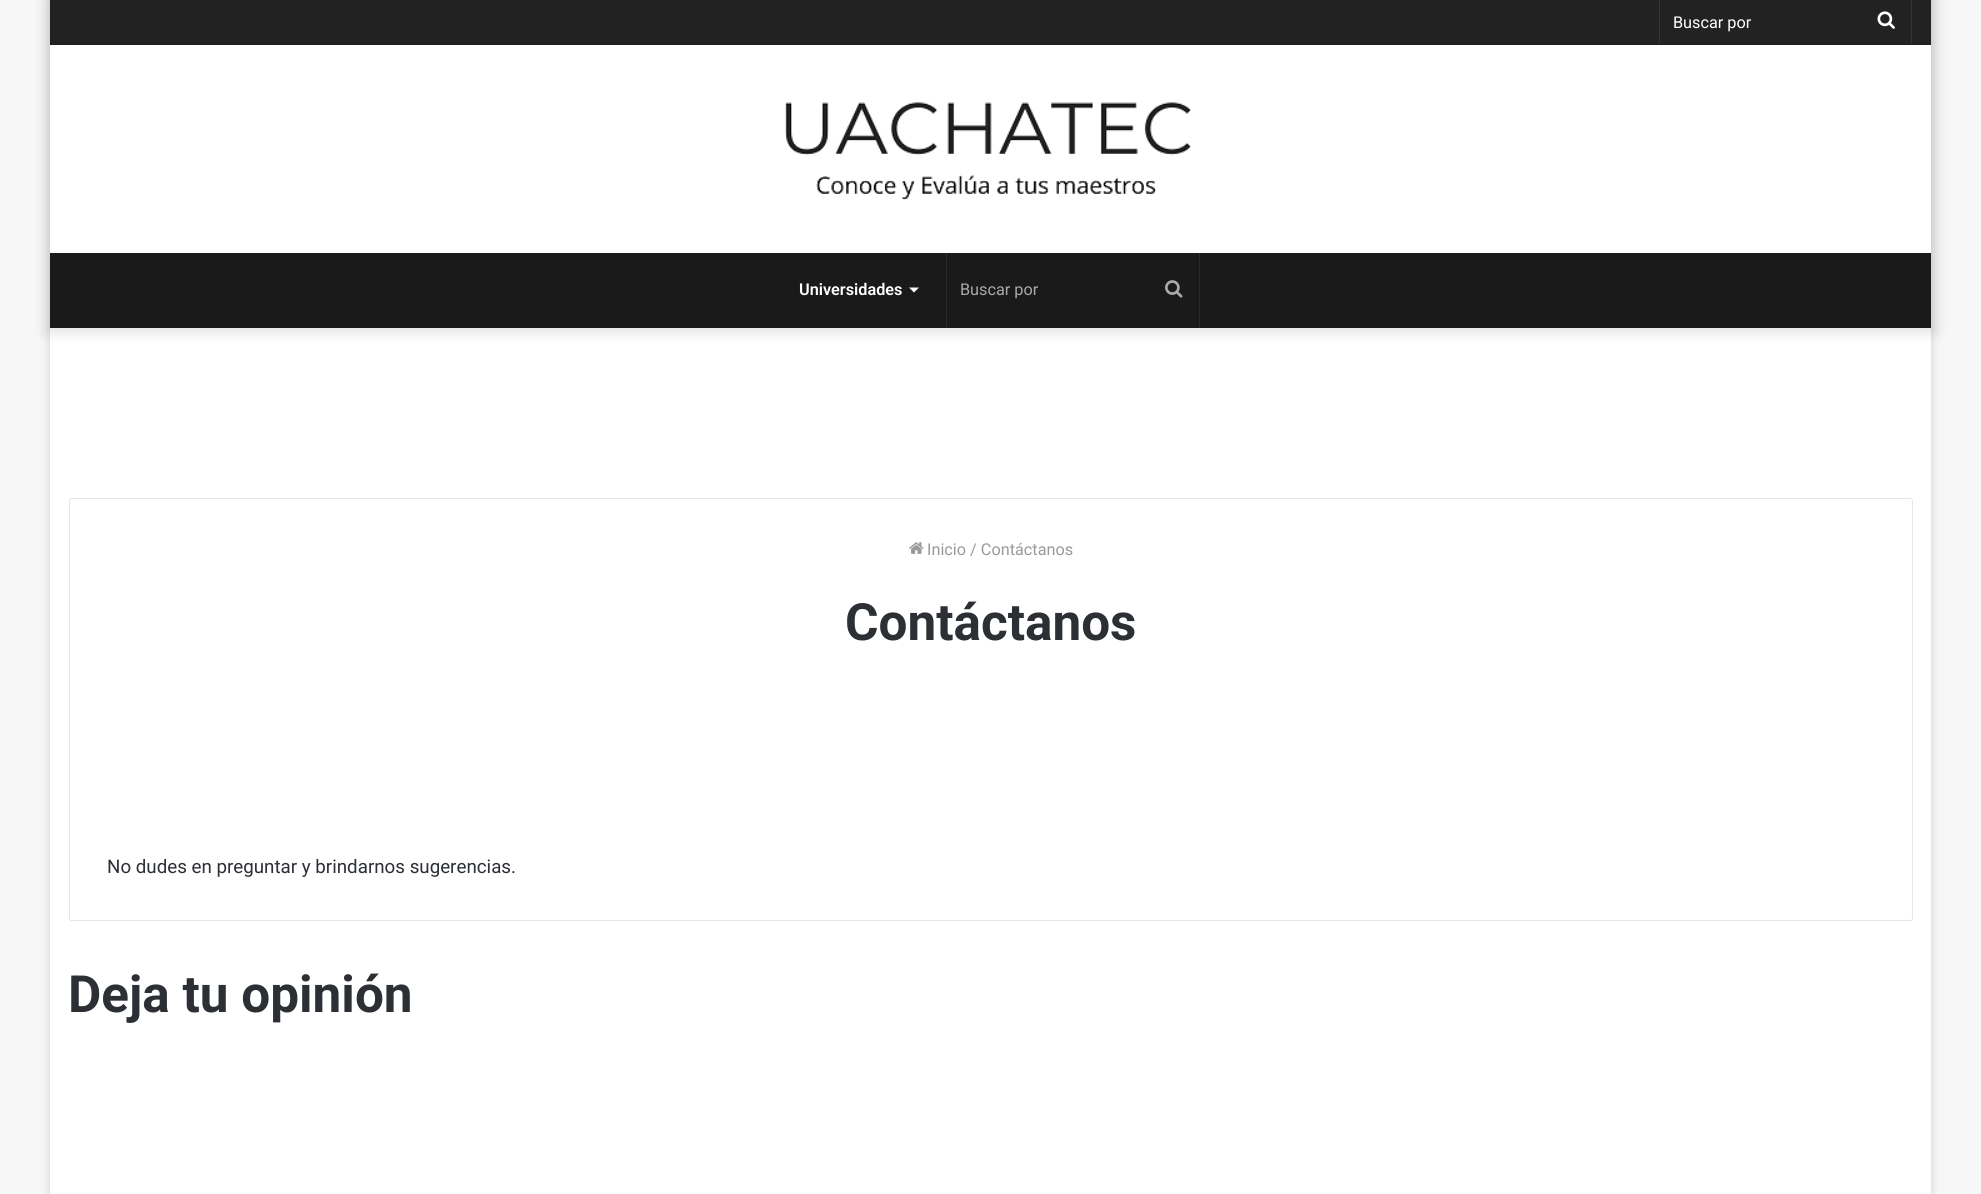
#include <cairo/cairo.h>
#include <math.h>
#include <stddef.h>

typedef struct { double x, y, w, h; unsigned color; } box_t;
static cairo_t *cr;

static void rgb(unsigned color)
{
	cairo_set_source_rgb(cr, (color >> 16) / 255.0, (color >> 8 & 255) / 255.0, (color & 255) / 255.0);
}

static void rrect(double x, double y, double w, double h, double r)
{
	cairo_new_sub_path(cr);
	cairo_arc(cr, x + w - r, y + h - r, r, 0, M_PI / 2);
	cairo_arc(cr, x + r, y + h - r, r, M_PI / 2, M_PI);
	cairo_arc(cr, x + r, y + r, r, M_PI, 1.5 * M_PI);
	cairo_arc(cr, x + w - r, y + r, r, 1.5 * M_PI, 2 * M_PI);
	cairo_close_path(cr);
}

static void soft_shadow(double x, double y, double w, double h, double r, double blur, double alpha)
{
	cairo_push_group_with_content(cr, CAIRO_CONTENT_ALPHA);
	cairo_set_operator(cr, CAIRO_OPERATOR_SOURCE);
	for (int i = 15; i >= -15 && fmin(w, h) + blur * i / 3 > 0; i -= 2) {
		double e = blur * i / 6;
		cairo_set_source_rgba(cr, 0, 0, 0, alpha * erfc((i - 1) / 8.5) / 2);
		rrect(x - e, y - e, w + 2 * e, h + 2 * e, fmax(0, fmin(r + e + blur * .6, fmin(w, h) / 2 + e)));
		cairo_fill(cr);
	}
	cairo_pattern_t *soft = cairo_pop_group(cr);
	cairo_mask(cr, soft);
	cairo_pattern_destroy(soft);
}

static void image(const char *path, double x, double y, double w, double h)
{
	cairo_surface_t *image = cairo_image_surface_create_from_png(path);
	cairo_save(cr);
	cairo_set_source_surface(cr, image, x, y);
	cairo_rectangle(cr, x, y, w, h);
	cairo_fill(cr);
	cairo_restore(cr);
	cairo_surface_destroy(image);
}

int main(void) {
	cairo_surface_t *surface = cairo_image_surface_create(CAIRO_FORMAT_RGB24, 1981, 1194);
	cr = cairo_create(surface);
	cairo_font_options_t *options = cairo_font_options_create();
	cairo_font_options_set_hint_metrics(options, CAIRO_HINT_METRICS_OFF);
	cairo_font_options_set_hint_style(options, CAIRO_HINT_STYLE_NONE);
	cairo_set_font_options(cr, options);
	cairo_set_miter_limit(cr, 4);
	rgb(0xf7f7f7);
	cairo_paint(cr);
	rgb(0xababab);
	soft_shadow(50, 1, 1881, 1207, 0, 4.5, 0.5);
	rgb(0xffffff);
	cairo_rectangle(cr, 50, 328, 1881, 866);
	cairo_fill(cr);
	rgb(0x000000);
	soft_shadow(44, -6, 1894, 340, 0, 6, 0.1);
	{
		static const box_t items[] = {
			{50, 45, 1881, 208, 0xffffff},
			{50, 0, 1881, 44, 0x222222},
			{50, 44, 1881, 1, 0x1f1f1f},
			{1911, 0, 1, 44, 0x343434},
			{1659, 0, 1, 44, 0x343434},
		};
		for (size_t i = 0; i < sizeof items / sizeof *items; i++) {
			rgb(items[i].color);
			cairo_rectangle(cr, items[i].x, items[i].y, items[i].w, items[i].h);
			cairo_fill(cr);
		}
	}
	image("img/1.png", 1877, 11, 18, 18);
	image("img/2.png", 785, 102, 406, 99);
	rgb(0x1a1a1a);
	cairo_rectangle(cr, 50, 253, 1881, 75);
	cairo_fill(cr);
	rgb(0xffffff);
	cairo_new_path(cr);
	cairo_move_to(cr, 909, 287.5);
	cairo_line_to(cr, 919, 287.5);
	cairo_line_to(cr, 914, 292.5);
	cairo_close_path(cr);
	cairo_fill(cr);
	rgb(0x2a2a2a);
	cairo_rectangle(cr, 1199, 253, 1, 75);
	cairo_fill(cr);
	cairo_rectangle(cr, 946, 253, 1, 75);
	cairo_fill(cr);
	image("img/3.png", 1165, 280, 18, 18);
	rrect(69.5, 498.5, 1843, 422, 2);
	rgb(0xe6e6e6);
	cairo_set_line_width(cr, 1);
	cairo_stroke(cr);
	image("img/4.png", 909, 542, 15, 12);
	cairo_select_font_face(cr, "Roboto", CAIRO_FONT_SLANT_NORMAL, CAIRO_FONT_WEIGHT_NORMAL);
	cairo_set_font_size(cr, 16.25);
	rgb(0xffffff);
	cairo_move_to(cr, 1673, 28);
	cairo_show_text(cr, "Buscar por");
	cairo_select_font_face(cr, "Roboto SemiBold", CAIRO_FONT_SLANT_NORMAL, CAIRO_FONT_WEIGHT_NORMAL);
	cairo_move_to(cr, 799, 295);
	cairo_show_text(cr, "Universidades");
	cairo_select_font_face(cr, "Roboto", CAIRO_FONT_SLANT_NORMAL, CAIRO_FONT_WEIGHT_NORMAL);
	rgb(0xaaaaaa);
	cairo_move_to(cr, 960, 295);
	cairo_show_text(cr, "Buscar por");
	rgb(0x999999);
	cairo_move_to(cr, 927, 555);
	cairo_show_text(cr, "Inicio / Contáctanos");
	cairo_select_font_face(cr, "Roboto", CAIRO_FONT_SLANT_NORMAL, CAIRO_FONT_WEIGHT_BOLD);
	cairo_set_font_size(cr, 51.25);
	rgb(0x2c2f34);
	cairo_move_to(cr, 845, 640);
	cairo_show_text(cr, "Contáctanos");
	cairo_select_font_face(cr, "Roboto", CAIRO_FONT_SLANT_NORMAL, CAIRO_FONT_WEIGHT_NORMAL);
	cairo_set_font_size(cr, 18.75);
	cairo_move_to(cr, 107, 873);
	cairo_show_text(cr, "No dudes en preguntar y brindarnos sugerencias.");
	cairo_select_font_face(cr, "Roboto", CAIRO_FONT_SLANT_NORMAL, CAIRO_FONT_WEIGHT_BOLD);
	cairo_set_font_size(cr, 51.25);
	cairo_move_to(cr, 68, 1012);
	cairo_show_text(cr, "Deja tu opinión");
	cairo_surface_write_to_png(surface, "page.png");
	cairo_font_options_destroy(options);
	cairo_destroy(cr);
	cairo_surface_destroy(surface);
	return 0;
}
